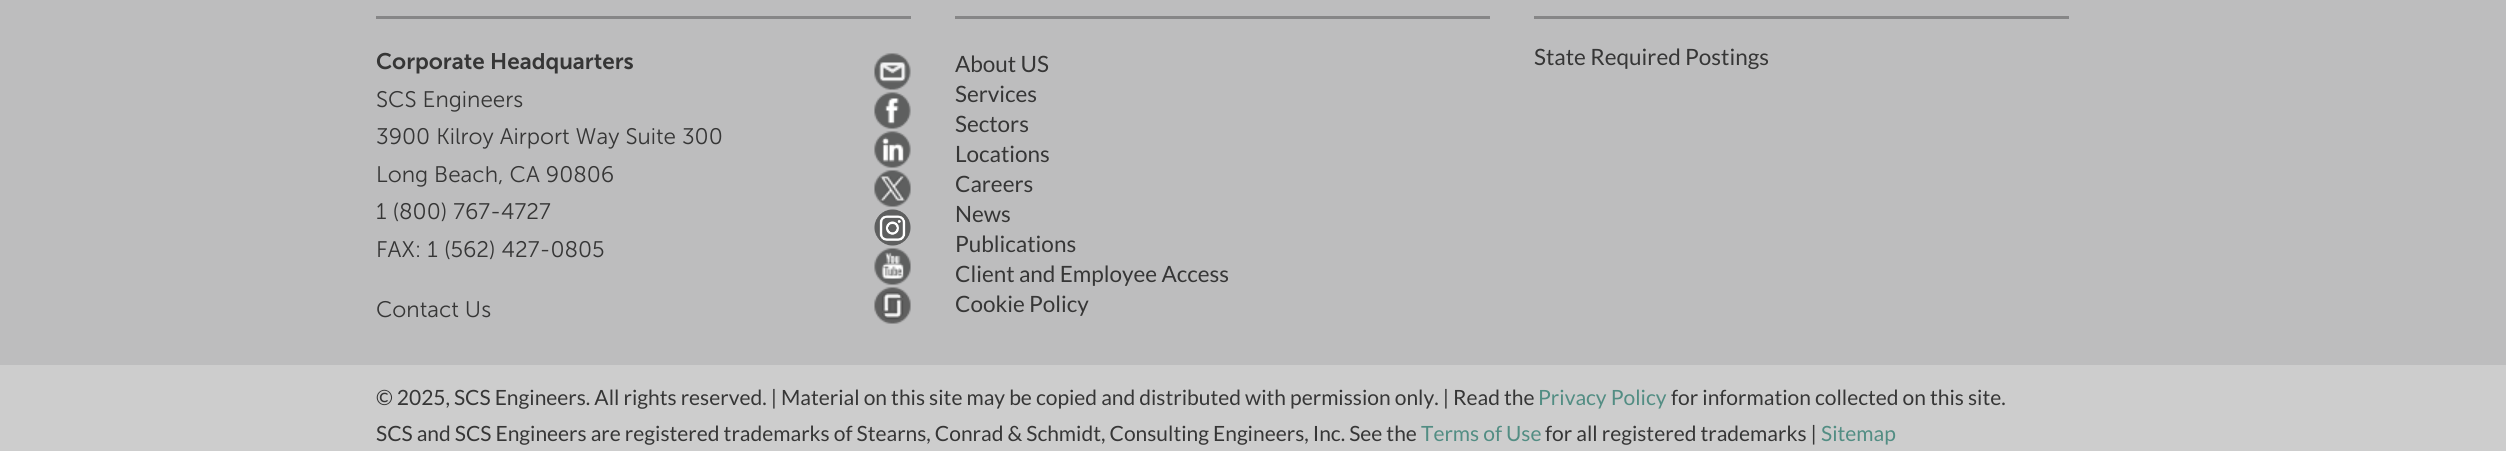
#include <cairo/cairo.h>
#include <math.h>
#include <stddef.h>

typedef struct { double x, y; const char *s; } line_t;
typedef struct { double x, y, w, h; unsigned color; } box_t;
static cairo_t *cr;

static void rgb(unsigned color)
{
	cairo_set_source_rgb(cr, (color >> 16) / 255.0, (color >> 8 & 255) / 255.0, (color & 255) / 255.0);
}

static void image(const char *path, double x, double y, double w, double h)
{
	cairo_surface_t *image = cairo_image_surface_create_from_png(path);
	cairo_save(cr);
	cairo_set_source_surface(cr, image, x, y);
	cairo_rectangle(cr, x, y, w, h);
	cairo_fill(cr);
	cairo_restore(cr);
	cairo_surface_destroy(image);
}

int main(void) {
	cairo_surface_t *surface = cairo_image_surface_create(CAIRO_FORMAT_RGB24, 2506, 451);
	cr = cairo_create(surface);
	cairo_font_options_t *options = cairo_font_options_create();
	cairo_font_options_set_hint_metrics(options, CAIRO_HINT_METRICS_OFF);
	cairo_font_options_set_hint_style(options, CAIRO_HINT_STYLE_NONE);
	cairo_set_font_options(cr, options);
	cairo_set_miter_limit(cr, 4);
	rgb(0xbdbdbe);
	cairo_paint(cr);
	rgb(0x868687);
	cairo_rectangle(cr, 376, 16, 535, 3);
	cairo_fill(cr);
	image("img/1.png", 874, 53, 37, 37);
	image("img/2.png", 874, 92, 37, 37);
	image("img/3.png", 874, 131, 37, 37);
	image("img/4.png", 874, 170, 37, 37);
	image("img/5.png", 874, 209, 37, 37);
	image("img/6.png", 874, 248, 37, 37);
	image("img/7.png", 874, 287, 37, 37);
	{
		static const box_t items[] = {
			{955, 16, 535, 3, 0x868687},
			{1534, 16, 535, 3, 0x868687},
			{0, 365, 2506, 86, 0xcdcdcd},
		};
		for (size_t i = 0; i < sizeof items / sizeof *items; i++) {
			rgb(items[i].color);
			cairo_rectangle(cr, items[i].x, items[i].y, items[i].w, items[i].h);
			cairo_fill(cr);
		}
	}
	cairo_select_font_face(cr, "Museo Sans SemiBold", CAIRO_FONT_SLANT_NORMAL, CAIRO_FONT_WEIGHT_NORMAL);
	cairo_set_font_size(cr, 22.5);
	rgb(0x363636);
	cairo_move_to(cr, 376, 69);
	cairo_show_text(cr, "Corporate Headquarters");
	cairo_select_font_face(cr, "Museo Sans Light", CAIRO_FONT_SLANT_NORMAL, CAIRO_FONT_WEIGHT_NORMAL);
	{
		static const line_t items[] = {
			{376, 107, "SCS Engineers"},
			{376, 144, "3900 Kilroy Airport Way Suite 300"},
			{376, 182, "Long Beach, CA 90806"},
			{376, 219, "1 (800) 767-4727"},
			{376, 257, "FAX: 1 (562) 427-0805"},
			{376, 317, "Contact Us"},
		};
		for (size_t i = 0; i < sizeof items / sizeof *items; i++) {
			cairo_move_to(cr, items[i].x, items[i].y);
			cairo_show_text(cr, items[i].s);
		}
	}
	cairo_select_font_face(cr, "Lato", CAIRO_FONT_SLANT_NORMAL, CAIRO_FONT_WEIGHT_NORMAL);
	{
		static const line_t items[] = {
			{955, 72, "About US"},
			{955, 102, "Services"},
			{955, 132, "Sectors"},
			{955, 162, "Locations"},
			{955, 192, "Careers"},
			{955, 222, "News"},
			{955, 252, "Publications"},
			{955, 282, "Client and Employee Access"},
			{955, 312, "Cookie Policy"},
			{1534, 65, "State Required Postings"},
		};
		for (size_t i = 0; i < sizeof items / sizeof *items; i++) {
			cairo_move_to(cr, items[i].x, items[i].y);
			cairo_show_text(cr, items[i].s);
		}
	}
	cairo_set_font_size(cr, 21);
	cairo_move_to(cr, 376, 405);
	cairo_show_text(cr, "© 2025, SCS Engineers. All rights reserved. | Material on this site may be copied and distributed with permission only. | Read the");
	rgb(0x528d83);
	cairo_move_to(cr, 1538, 405);
	cairo_show_text(cr, "Privacy Policy");
	rgb(0x363636);
	cairo_move_to(cr, 1671, 405);
	cairo_show_text(cr, "for information collected on this site.");
	cairo_move_to(cr, 376, 441);
	cairo_show_text(cr, "SCS and SCS Engineers are registered trademarks of Stearns, Conrad & Schmidt, Consulting Engineers, Inc. See the");
	rgb(0x528d83);
	cairo_move_to(cr, 1421, 441);
	cairo_show_text(cr, "Terms of Use");
	rgb(0x363636);
	cairo_move_to(cr, 1545, 441);
	cairo_show_text(cr, "for all registered trademarks |");
	rgb(0x528d83);
	cairo_move_to(cr, 1821, 441);
	cairo_show_text(cr, "Sitemap");
	cairo_surface_write_to_png(surface, "page.png");
	cairo_font_options_destroy(options);
	cairo_destroy(cr);
	cairo_surface_destroy(surface);
	return 0;
}
